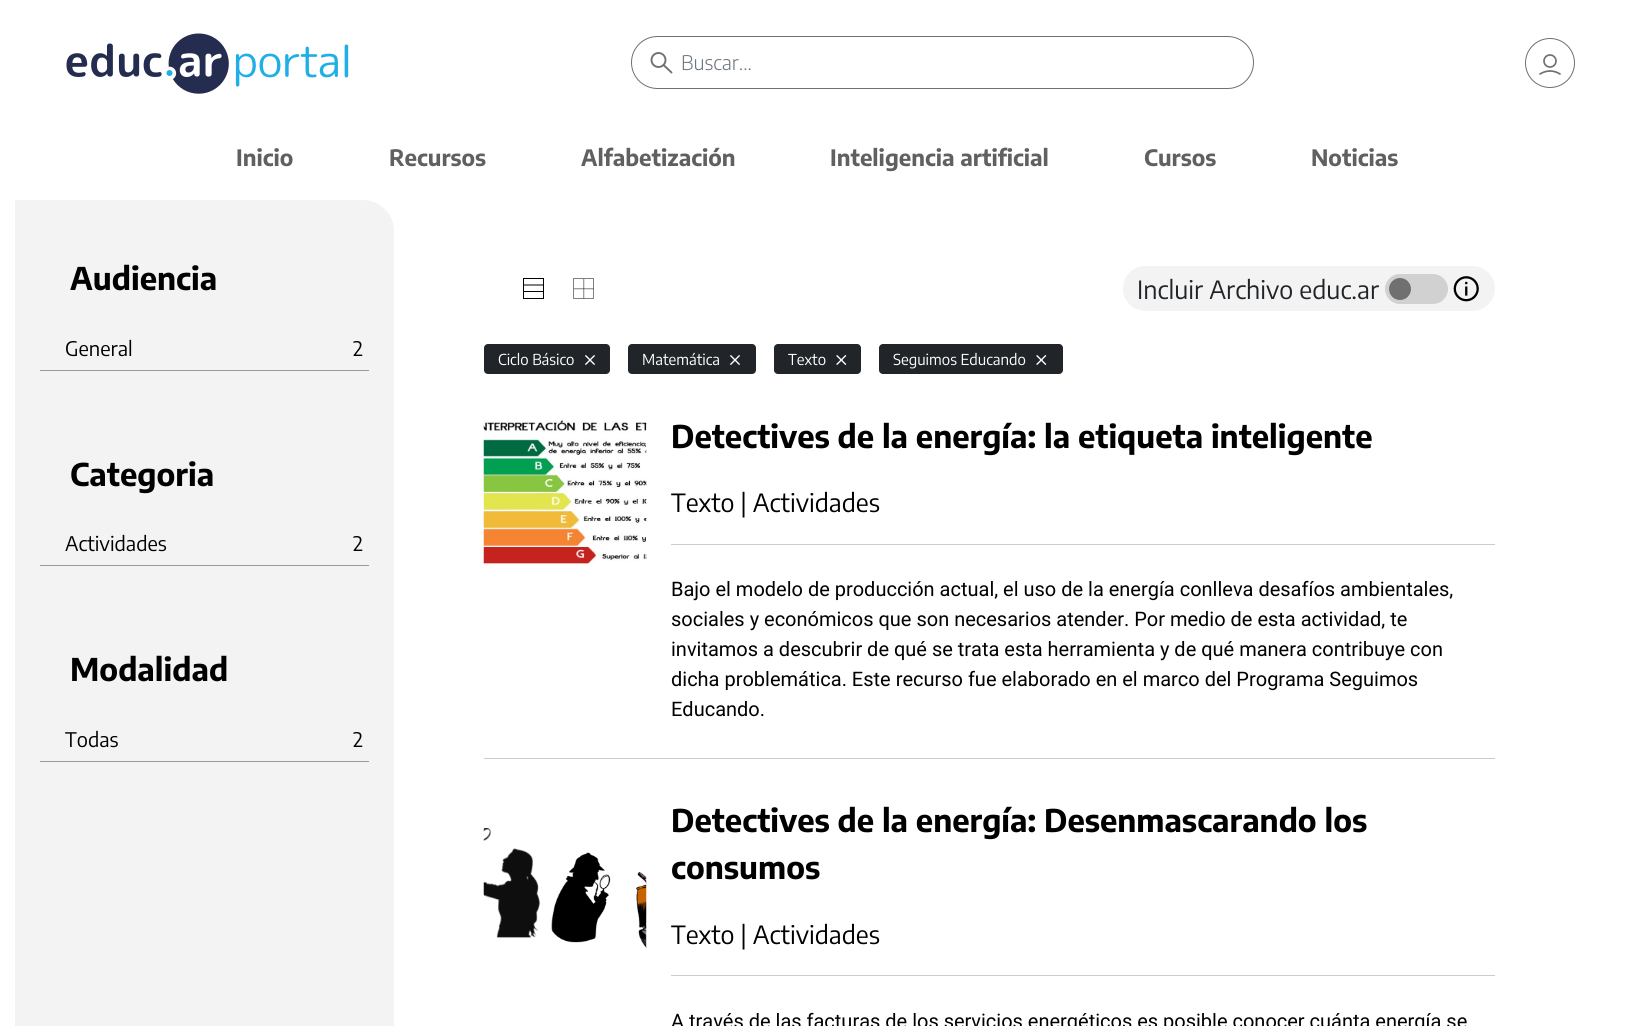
#include <cairo/cairo.h>
#include <math.h>
#include <stddef.h>

typedef struct { double x, y; const char *s; } line_t;
typedef struct { double x, y, w, h; unsigned color; } box_t;
static cairo_t *cr;

static void rgb(unsigned color)
{
	cairo_set_source_rgb(cr, (color >> 16) / 255.0, (color >> 8 & 255) / 255.0, (color & 255) / 255.0);
}

static void rrect(double x, double y, double w, double h, double r)
{
	cairo_new_sub_path(cr);
	cairo_arc(cr, x + w - r, y + h - r, r, 0, M_PI / 2);
	cairo_arc(cr, x + r, y + h - r, r, M_PI / 2, M_PI);
	cairo_arc(cr, x + r, y + r, r, M_PI, 1.5 * M_PI);
	cairo_arc(cr, x + w - r, y + r, r, 1.5 * M_PI, 2 * M_PI);
	cairo_close_path(cr);
}

static void image(const char *path, double x, double y, double w, double h)
{
	cairo_surface_t *image = cairo_image_surface_create_from_png(path);
	cairo_save(cr);
	cairo_set_source_surface(cr, image, x, y);
	cairo_rectangle(cr, x, y, w, h);
	cairo_fill(cr);
	cairo_restore(cr);
	cairo_surface_destroy(image);
}

int main(void) {
	cairo_surface_t *surface = cairo_image_surface_create(CAIRO_FORMAT_RGB24, 1634, 1026);
	cr = cairo_create(surface);
	cairo_font_options_t *options = cairo_font_options_create();
	cairo_font_options_set_hint_metrics(options, CAIRO_HINT_METRICS_OFF);
	cairo_font_options_set_hint_style(options, CAIRO_HINT_STYLE_NONE);
	cairo_set_font_options(cr, options);
	cairo_set_miter_limit(cr, 4);
	rgb(0xffffff);
	cairo_paint(cr);
	image("img/1.png", 66, 33, 283, 61);
	rrect(631.5, 36.5, 622, 52, 26);
	rgb(0x707070);
	cairo_set_line_width(cr, 1);
	cairo_stroke(cr);
	cairo_arc(cr, 658.5, 60, 7, 0, 2 * M_PI);
	cairo_set_line_width(cr, 1.9);
	cairo_stroke(cr);
	cairo_new_path(cr);
	cairo_move_to(cr, 671.5, 72.5);
	cairo_line_to(cr, 663.5, 65);
	cairo_set_line_cap(cr, CAIRO_LINE_CAP_ROUND);
	cairo_set_line_join(cr, CAIRO_LINE_JOIN_ROUND);
	cairo_stroke(cr);
	cairo_arc(cr, 1550, 63, 24.5, 0, 2 * M_PI);
	cairo_set_line_width(cr, 1);
	cairo_set_line_cap(cr, CAIRO_LINE_CAP_BUTT);
	cairo_set_line_join(cr, CAIRO_LINE_JOIN_MITER);
	cairo_stroke(cr);
	cairo_arc(cr, 1550, 61, 6, 0, 2 * M_PI);
	cairo_set_line_width(cr, 1.7);
	cairo_stroke(cr);
	cairo_new_path(cr);
	cairo_move_to(cr, 1540, 74);
	cairo_curve_to(cr, 1546.5, 70, 1553.5, 70, 1560, 74);
	cairo_set_line_cap(cr, CAIRO_LINE_CAP_ROUND);
	cairo_set_line_join(cr, CAIRO_LINE_JOIN_ROUND);
	cairo_stroke(cr);
	rgb(0xf3f3f3);
	cairo_new_path(cr);
	cairo_move_to(cr, 15, 200);
	cairo_line_to(cr, 363, 200);
	cairo_curve_to(cr, 380, 200, 394, 214, 394, 231);
	cairo_line_to(cr, 394, 1026);
	cairo_curve_to(cr, 394, 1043, 380, 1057, 363, 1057);
	cairo_line_to(cr, 15, 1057);
	cairo_close_path(cr);
	cairo_fill(cr);
	{
		static const box_t items[] = {
			{40, 370, 329, 1, 0x999999},
			{40, 565, 329, 1, 0x999999},
			{40, 761, 329, 1, 0x999999},
		};
		for (size_t i = 0; i < sizeof items / sizeof *items; i++) {
			rgb(items[i].color);
			cairo_rectangle(cr, items[i].x, items[i].y, items[i].w, items[i].h);
			cairo_fill(cr);
		}
	}
	cairo_rectangle(cr, 523.5, 278.5, 20, 20);
	rgb(0x000000);
	cairo_set_line_width(cr, 1);
	cairo_set_line_cap(cr, CAIRO_LINE_CAP_BUTT);
	cairo_set_line_join(cr, CAIRO_LINE_JOIN_MITER);
	cairo_stroke(cr);
	cairo_new_path(cr);
	cairo_move_to(cr, 524, 285);
	cairo_line_to(cr, 543.5, 285);
	cairo_stroke(cr);
	cairo_rectangle(cr, 524, 291, 20, 1);
	cairo_fill(cr);
	image("img/2.png", 573, 278, 21, 21);
	rgb(0xf3f3f3);
	rrect(1123, 266, 372, 45, 22.5);
	cairo_fill(cr);
	rgb(0xd1d1d1);
	rrect(1385, 274, 63, 30, 15);
	cairo_fill(cr);
	rgb(0x707070);
	cairo_arc(cr, 1400, 289, 11, 0, 2 * M_PI);
	cairo_fill(cr);
	image("img/3.png", 1453, 276, 26, 26);
	rgb(0x212529);
	rrect(484, 344, 126, 30, 4);
	cairo_fill(cr);
	image("img/4.png", 585, 355, 10, 10);
	rrect(628, 344, 128, 30, 4);
	cairo_fill(cr);
	image("img/4.png", 730, 355, 10, 10);
	rrect(774, 344, 87, 30, 4);
	cairo_fill(cr);
	image("img/5.png", 836, 355, 11, 10);
	rrect(879, 344, 184, 30, 4);
	cairo_fill(cr);
	image("img/5.png", 1036, 355, 11, 10);
	rgb(0xcacbcc);
	cairo_rectangle(cr, 484, 758, 1011, 1);
	cairo_fill(cr);
	image("img/6.png", 483, 420, 164, 144);
	rgb(0xcccccc);
	cairo_rectangle(cr, 671, 544, 824, 1);
	cairo_fill(cr);
	image("img/7.png", 483, 828, 164, 121);
	cairo_rectangle(cr, 671, 975, 824, 1);
	cairo_fill(cr);
	cairo_select_font_face(cr, "Encode Sans Condensed Light", CAIRO_FONT_SLANT_NORMAL, CAIRO_FONT_WEIGHT_NORMAL);
	cairo_set_font_size(cr, 20);
	rgb(0x6c757d);
	cairo_move_to(cr, 681, 70);
	cairo_show_text(cr, "Buscar...");
	cairo_select_font_face(cr, "Encode Sans Condensed", CAIRO_FONT_SLANT_NORMAL, CAIRO_FONT_WEIGHT_BOLD);
	cairo_set_font_size(cr, 22.5);
	rgb(0x606060);
	{
		static const line_t items[] = {
			{236, 166, "Inicio"},
			{389, 166, "Recursos"},
			{581, 166, "Alfabetización"},
			{830, 166, "Inteligencia artificial"},
			{1144, 166, "Cursos"},
			{1311, 166, "Noticias"},
		};
		for (size_t i = 0; i < sizeof items / sizeof *items; i++) {
			cairo_move_to(cr, items[i].x, items[i].y);
			cairo_show_text(cr, items[i].s);
		}
	}
	cairo_set_font_size(cr, 31.25);
	rgb(0x000000);
	cairo_move_to(cr, 70, 290);
	cairo_show_text(cr, "Audiencia");
	cairo_select_font_face(cr, "Encode Sans Condensed", CAIRO_FONT_SLANT_NORMAL, CAIRO_FONT_WEIGHT_NORMAL);
	cairo_set_font_size(cr, 20);
	cairo_move_to(cr, 65, 356);
	cairo_show_text(cr, "General");
	cairo_move_to(cr, 353, 356);
	cairo_show_text(cr, "2");
	cairo_select_font_face(cr, "Encode Sans Condensed", CAIRO_FONT_SLANT_NORMAL, CAIRO_FONT_WEIGHT_BOLD);
	cairo_set_font_size(cr, 31.25);
	cairo_move_to(cr, 70, 486);
	cairo_show_text(cr, "Categoria");
	cairo_select_font_face(cr, "Encode Sans Condensed", CAIRO_FONT_SLANT_NORMAL, CAIRO_FONT_WEIGHT_NORMAL);
	cairo_set_font_size(cr, 20);
	cairo_move_to(cr, 65, 551);
	cairo_show_text(cr, "Actividades");
	cairo_move_to(cr, 353, 551);
	cairo_show_text(cr, "2");
	cairo_select_font_face(cr, "Encode Sans Condensed", CAIRO_FONT_SLANT_NORMAL, CAIRO_FONT_WEIGHT_BOLD);
	cairo_set_font_size(cr, 31.25);
	cairo_move_to(cr, 70, 681);
	cairo_show_text(cr, "Modalidad");
	cairo_select_font_face(cr, "Encode Sans Condensed", CAIRO_FONT_SLANT_NORMAL, CAIRO_FONT_WEIGHT_NORMAL);
	cairo_set_font_size(cr, 20);
	cairo_move_to(cr, 65, 747);
	cairo_show_text(cr, "Todas");
	cairo_move_to(cr, 353, 747);
	cairo_show_text(cr, "2");
	cairo_set_font_size(cr, 25);
	rgb(0x212529);
	cairo_move_to(cr, 1137, 299);
	cairo_show_text(cr, "Incluir Archivo educ.ar");
	cairo_set_font_size(cr, 15);
	rgb(0xffffff);
	{
		static const line_t items[] = {
			{498, 365, "Ciclo Básico"},
			{642, 365, "Matemática"},
			{788, 365, "Texto"},
			{893, 365, "Seguimos Educando"},
		};
		for (size_t i = 0; i < sizeof items / sizeof *items; i++) {
			cairo_move_to(cr, items[i].x, items[i].y);
			cairo_show_text(cr, items[i].s);
		}
	}
	cairo_select_font_face(cr, "Encode Sans Condensed", CAIRO_FONT_SLANT_NORMAL, CAIRO_FONT_WEIGHT_BOLD);
	cairo_set_font_size(cr, 31.2);
	rgb(0x000000);
	cairo_move_to(cr, 671, 448);
	cairo_show_text(cr, "Detectives de la energía: la etiqueta inteligente");
	cairo_select_font_face(cr, "Encode Sans Condensed", CAIRO_FONT_SLANT_NORMAL, CAIRO_FONT_WEIGHT_NORMAL);
	cairo_set_font_size(cr, 25);
	cairo_move_to(cr, 671, 512);
	cairo_show_text(cr, "Texto | Actividades");
	cairo_select_font_face(cr, "Roboto", CAIRO_FONT_SLANT_NORMAL, CAIRO_FONT_WEIGHT_NORMAL);
	cairo_set_font_size(cr, 20);
	{
		static const line_t items[] = {
			{671, 596, "Bajo el modelo de producción actual, el uso de la energía conlleva desafíos ambientales,"},
			{671, 626, "sociales y económicos que son necesarios atender. Por medio de esta actividad, te"},
			{671, 656, "invitamos a descubrir de qué se trata esta herramienta y de qué manera contribuye con"},
			{671, 686, "dicha problemática. Este recurso fue elaborado en el marco del Programa Seguimos"},
			{671, 716, "Educando."},
		};
		for (size_t i = 0; i < sizeof items / sizeof *items; i++) {
			cairo_move_to(cr, items[i].x, items[i].y);
			cairo_show_text(cr, items[i].s);
		}
	}
	cairo_select_font_face(cr, "Encode Sans Condensed", CAIRO_FONT_SLANT_NORMAL, CAIRO_FONT_WEIGHT_BOLD);
	cairo_set_font_size(cr, 31.2);
	cairo_move_to(cr, 671, 832);
	cairo_show_text(cr, "Detectives de la energía: Desenmascarando los");
	cairo_move_to(cr, 671, 879);
	cairo_show_text(cr, "consumos");
	cairo_select_font_face(cr, "Encode Sans Condensed", CAIRO_FONT_SLANT_NORMAL, CAIRO_FONT_WEIGHT_NORMAL);
	cairo_set_font_size(cr, 25);
	cairo_move_to(cr, 671, 944);
	cairo_show_text(cr, "Texto | Actividades");
	cairo_select_font_face(cr, "Roboto", CAIRO_FONT_SLANT_NORMAL, CAIRO_FONT_WEIGHT_NORMAL);
	cairo_set_font_size(cr, 20);
	cairo_move_to(cr, 671, 1028);
	cairo_show_text(cr, "A través de las facturas de los servicios energéticos es posible conocer cuánta energía se");
	cairo_surface_write_to_png(surface, "page.png");
	cairo_font_options_destroy(options);
	cairo_destroy(cr);
	cairo_surface_destroy(surface);
	return 0;
}
